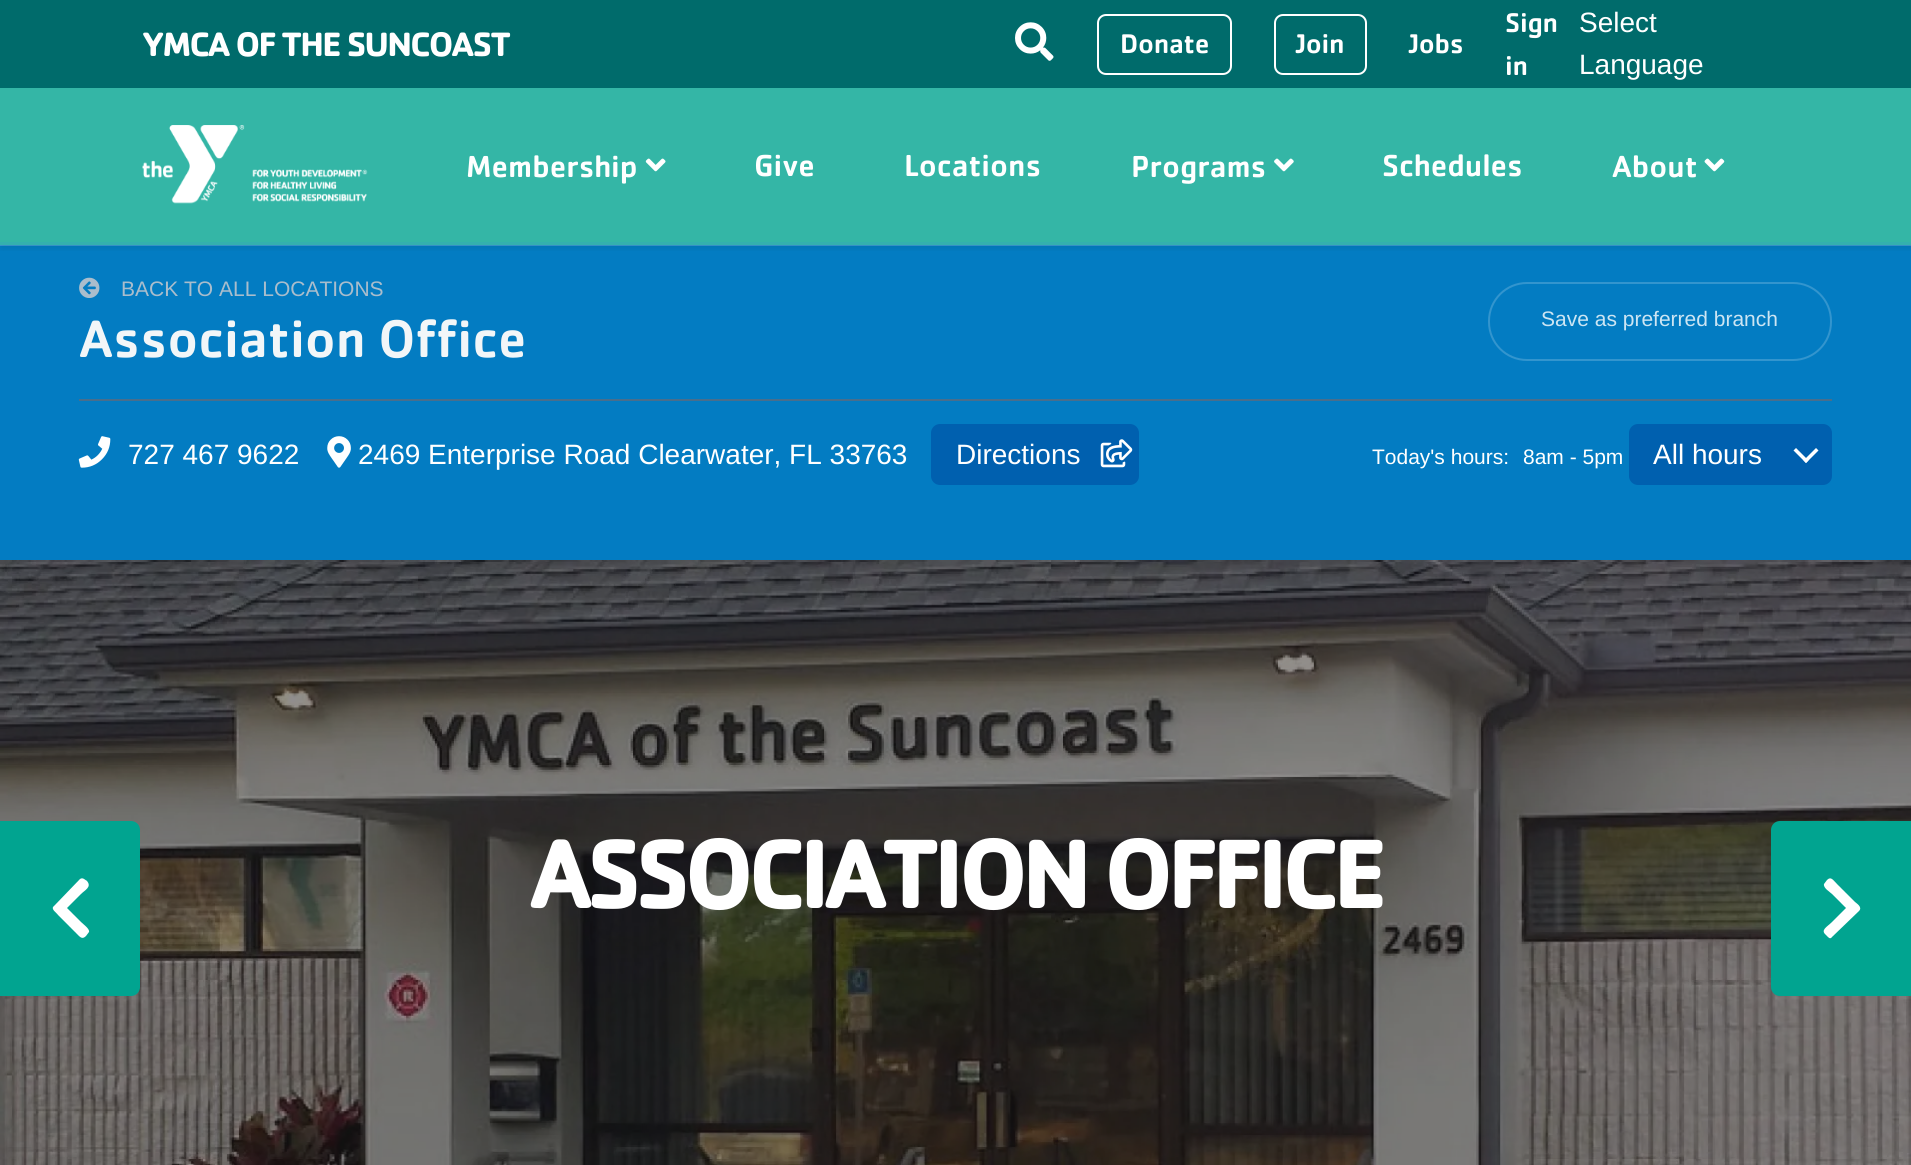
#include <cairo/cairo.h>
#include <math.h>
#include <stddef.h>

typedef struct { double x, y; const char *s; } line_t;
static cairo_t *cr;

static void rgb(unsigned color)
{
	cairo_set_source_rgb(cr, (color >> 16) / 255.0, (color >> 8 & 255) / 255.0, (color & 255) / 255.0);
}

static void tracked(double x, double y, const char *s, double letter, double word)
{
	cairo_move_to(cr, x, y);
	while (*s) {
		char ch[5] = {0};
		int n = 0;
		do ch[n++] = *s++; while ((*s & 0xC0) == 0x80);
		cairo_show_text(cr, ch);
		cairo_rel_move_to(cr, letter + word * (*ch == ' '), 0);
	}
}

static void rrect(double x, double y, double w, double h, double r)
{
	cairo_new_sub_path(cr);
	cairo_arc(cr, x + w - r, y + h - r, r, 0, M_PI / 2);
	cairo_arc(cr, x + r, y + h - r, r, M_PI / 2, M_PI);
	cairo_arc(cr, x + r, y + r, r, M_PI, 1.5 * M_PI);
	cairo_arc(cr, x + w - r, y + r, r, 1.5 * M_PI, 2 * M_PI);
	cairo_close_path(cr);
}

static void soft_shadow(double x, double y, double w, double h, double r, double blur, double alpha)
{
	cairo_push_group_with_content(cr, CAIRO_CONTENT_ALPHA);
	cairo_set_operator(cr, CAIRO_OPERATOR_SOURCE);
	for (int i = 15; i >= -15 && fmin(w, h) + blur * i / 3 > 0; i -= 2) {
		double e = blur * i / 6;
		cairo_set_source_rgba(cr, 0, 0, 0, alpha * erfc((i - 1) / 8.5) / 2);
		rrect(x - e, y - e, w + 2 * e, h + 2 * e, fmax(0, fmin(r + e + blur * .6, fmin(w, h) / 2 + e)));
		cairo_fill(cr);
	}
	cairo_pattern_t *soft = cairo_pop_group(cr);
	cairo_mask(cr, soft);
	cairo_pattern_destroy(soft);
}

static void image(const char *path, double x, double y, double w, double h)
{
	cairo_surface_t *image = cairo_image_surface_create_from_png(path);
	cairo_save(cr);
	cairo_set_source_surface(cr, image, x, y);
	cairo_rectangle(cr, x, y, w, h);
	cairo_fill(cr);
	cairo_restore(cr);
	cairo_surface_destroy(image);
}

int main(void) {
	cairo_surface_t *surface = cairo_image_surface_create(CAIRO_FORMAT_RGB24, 1911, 1165);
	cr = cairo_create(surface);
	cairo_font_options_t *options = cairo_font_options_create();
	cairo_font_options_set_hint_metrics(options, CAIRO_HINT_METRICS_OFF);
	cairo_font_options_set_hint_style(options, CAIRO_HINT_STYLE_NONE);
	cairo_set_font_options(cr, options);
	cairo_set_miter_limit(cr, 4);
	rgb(0x34b6a6);
	cairo_paint(cr);
	rgb(0x037cc2);
	cairo_rectangle(cr, 0, 245, 1911, 315);
	cairo_fill(cr);
	rgb(0x019c9a);
	cairo_rectangle(cr, 0, 242, 1911, 3);
	cairo_fill(cr);
	cairo_save(cr);
	cairo_rectangle(cr, 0, 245, 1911, 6);
	cairo_clip(cr);
	rgb(0x000000);
	soft_shadow(2, 2, 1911, 245, 0, 4.5, 0.1);
	cairo_restore(cr);
	cairo_set_source_rgba(cr, 1, 1, 1, 0.2);
	cairo_rectangle(cr, 0, 242, 1911, 4);
	cairo_fill(cr);
	rgb(0x006b6b);
	cairo_rectangle(cr, 0, 0, 1911, 88);
	cairo_fill(cr);
	image("img/1.png", 1015, 22, 39, 39);
	rrect(1098, 15, 133, 59, 8);
	rgb(0xffffff);
	cairo_stroke(cr);
	rrect(1275, 15, 91, 59, 8);
	cairo_stroke(cr);
	image("img/2.png", 142, 125, 226, 79);
	image("img/3.png", 645, 158, 21, 14);
	image("img/4.png", 1274, 158, 20, 14);
	image("img/5.png", 1704, 158, 21, 14);
	rgb(0x496e8c);
	cairo_rectangle(cr, 79, 399, 1753, 2);
	cairo_fill(cr);
	image("img/6.png", 79, 277, 21, 21);
	rrect(1489, 283, 342, 77, 38);
	rgb(0x3395ce);
	cairo_stroke(cr);
	image("img/7.png", 78, 436, 33, 32);
	image("img/8.png", 327, 436, 24, 32);
	rgb(0x0060af);
	rrect(931, 424, 208, 61, 9);
	cairo_fill(cr);
	image("img/9.png", 1100, 439, 33, 29);
	rrect(1629, 424, 203, 61, 9);
	cairo_fill(cr);
	rgb(0xffffff);
	cairo_new_path(cr);
	cairo_move_to(cr, 1816, 448);
	cairo_line_to(cr, 1818.5, 450.5);
	cairo_line_to(cr, 1806, 463);
	cairo_line_to(cr, 1803.5, 460.5);
	cairo_close_path(cr);
	cairo_fill(cr);
	cairo_new_path(cr);
	cairo_move_to(cr, 1796, 448);
	cairo_line_to(cr, 1808.5, 460.5);
	cairo_line_to(cr, 1806, 463);
	cairo_line_to(cr, 1793.5, 450.5);
	cairo_close_path(cr);
	cairo_fill(cr);
	rgb(0x231f20);
	cairo_rectangle(cr, 0, 560, 1911, 605);
	cairo_fill(cr);
	image("img/10.png", 0, 560, 1911, 605);
	rgb(0x01a490);
	cairo_new_path(cr);
	cairo_move_to(cr, 0, 821);
	cairo_line_to(cr, 131, 821);
	cairo_curve_to(cr, 136, 821, 140, 825, 140, 830);
	cairo_line_to(cr, 140, 987);
	cairo_curve_to(cr, 140, 992, 136, 996, 131, 996);
	cairo_line_to(cr, 0, 996);
	cairo_close_path(cr);
	cairo_fill(cr);
	rgb(0xffffff);
	cairo_new_path(cr);
	cairo_move_to(cr, 54, 906);
	cairo_line_to(cr, 80, 879);
	cairo_curve_to(cr, 83, 877, 85, 880, 87, 881);
	cairo_curve_to(cr, 92, 887, 85, 890, 81, 894);
	cairo_line_to(cr, 67, 908);
	cairo_line_to(cr, 81, 922);
	cairo_curve_to(cr, 83, 924, 90, 929, 89, 932);
	cairo_line_to(cr, 86, 936);
	cairo_curve_to(cr, 82, 940, 80, 937, 76, 933);
	cairo_line_to(cr, 58, 915);
	cairo_curve_to(cr, 57, 913, 50, 909, 54, 906);
	cairo_close_path(cr);
	cairo_fill(cr);
	rgb(0x01a490);
	cairo_new_path(cr);
	cairo_move_to(cr, 1780, 821);
	cairo_line_to(cr, 1911, 821);
	cairo_line_to(cr, 1911, 996);
	cairo_line_to(cr, 1780, 996);
	cairo_curve_to(cr, 1775, 996, 1771, 992, 1771, 987);
	cairo_line_to(cr, 1771, 830);
	cairo_curve_to(cr, 1771, 825, 1775, 821, 1780, 821);
	cairo_close_path(cr);
	cairo_fill(cr);
	rgb(0xffffff);
	cairo_new_path(cr);
	cairo_move_to(cr, 1859, 911);
	cairo_line_to(cr, 1832, 937);
	cairo_curve_to(cr, 1830, 940, 1828, 937, 1826, 935);
	cairo_curve_to(cr, 1820, 930, 1827, 927, 1832, 922);
	cairo_line_to(cr, 1846, 908);
	cairo_line_to(cr, 1832, 894);
	cairo_curve_to(cr, 1830, 892, 1823, 888, 1824, 884);
	cairo_line_to(cr, 1827, 880);
	cairo_curve_to(cr, 1831, 876, 1833, 880, 1837, 884);
	cairo_line_to(cr, 1855, 902);
	cairo_curve_to(cr, 1856, 903, 1863, 907, 1859, 911);
	cairo_close_path(cr);
	cairo_fill(cr);
	cairo_select_font_face(cr, "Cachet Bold", CAIRO_FONT_SLANT_NORMAL, CAIRO_FONT_WEIGHT_BOLD);
	cairo_set_font_size(cr, 35);
	tracked(142, 56, "YMCA OF THE SUNCOAST", -1.75, 0);
	cairo_select_font_face(cr, "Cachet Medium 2 Medium", CAIRO_FONT_SLANT_NORMAL, CAIRO_FONT_WEIGHT_NORMAL);
	cairo_set_font_size(cr, 28);
	{
		static const line_t items[] = {
			{1120, 53, "Donate"},
			{1296, 53, "Join"},
			{1409, 53, "Jobs"},
			{1505, 32, "Sign"},
			{1505, 75, "in"},
		};
		for (size_t i = 0; i < sizeof items / sizeof *items; i++) {
			tracked(items[i].x, items[i].y, items[i].s, -0.25, 0);
		}
	}
	cairo_select_font_face(cr, "Liberation Sans", CAIRO_FONT_SLANT_NORMAL, CAIRO_FONT_WEIGHT_NORMAL);
	cairo_move_to(cr, 1579, 32);
	cairo_show_text(cr, "Select");
	cairo_move_to(cr, 1579, 74);
	cairo_show_text(cr, "Language");
	cairo_select_font_face(cr, "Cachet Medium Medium", CAIRO_FONT_SLANT_NORMAL, CAIRO_FONT_WEIGHT_NORMAL);
	cairo_set_font_size(cr, 31.5);
	{
		static const line_t items[] = {
			{466, 177, "Membership"},
			{754, 176, "Give"},
			{904, 176, "Locations"},
			{1131, 177, "Programs"},
			{1382, 176, "Schedules"},
			{1612, 177, "About"},
		};
		for (size_t i = 0; i < sizeof items / sizeof *items; i++) {
			cairo_move_to(cr, items[i].x, items[i].y);
			cairo_show_text(cr, items[i].s);
		}
	}
	cairo_select_font_face(cr, "Liberation Sans", CAIRO_FONT_SLANT_NORMAL, CAIRO_FONT_WEIGHT_NORMAL);
	cairo_set_font_size(cr, 21);
	rgb(0xaabdcc);
	cairo_move_to(cr, 121, 296);
	cairo_show_text(cr, "BACK TO ALL LOCATIONS");
	cairo_select_font_face(cr, "Cachet Medium Medium", CAIRO_FONT_SLANT_NORMAL, CAIRO_FONT_WEIGHT_NORMAL);
	cairo_set_font_size(cr, 54.25);
	rgb(0xf2f6f8);
	cairo_move_to(cr, 79, 357);
	cairo_show_text(cr, "Association Office");
	cairo_select_font_face(cr, "Liberation Sans", CAIRO_FONT_SLANT_NORMAL, CAIRO_FONT_WEIGHT_NORMAL);
	cairo_set_font_size(cr, 21);
	rgb(0xcde5f3);
	cairo_move_to(cr, 1541, 326);
	cairo_show_text(cr, "Save as preferred branch");
	cairo_set_font_size(cr, 28);
	rgb(0xffffff);
	{
		static const line_t items[] = {
			{128, 464, "727 467 9622"},
			{358, 464, "2469 Enterprise Road Clearwater, FL 33763"},
			{956, 464, "Directions"},
		};
		for (size_t i = 0; i < sizeof items / sizeof *items; i++) {
			cairo_move_to(cr, items[i].x, items[i].y);
			cairo_show_text(cr, items[i].s);
		}
	}
	cairo_set_font_size(cr, 21);
	cairo_move_to(cr, 1372, 464);
	cairo_show_text(cr, "Today's hours:");
	cairo_move_to(cr, 1523, 464);
	cairo_show_text(cr, "8am - 5pm");
	cairo_set_font_size(cr, 28);
	cairo_move_to(cr, 1653, 464);
	cairo_show_text(cr, "All hours");
	cairo_select_font_face(cr, "Cachet Medium", CAIRO_FONT_SLANT_NORMAL, CAIRO_FONT_WEIGHT_BOLD);
	cairo_set_font_size(cr, 98);
	tracked(529, 908, "ASSOCIATION OFFICE", -4.25, 0);
	cairo_surface_write_to_png(surface, "page.png");
	cairo_font_options_destroy(options);
	cairo_destroy(cr);
	cairo_surface_destroy(surface);
	return 0;
}
